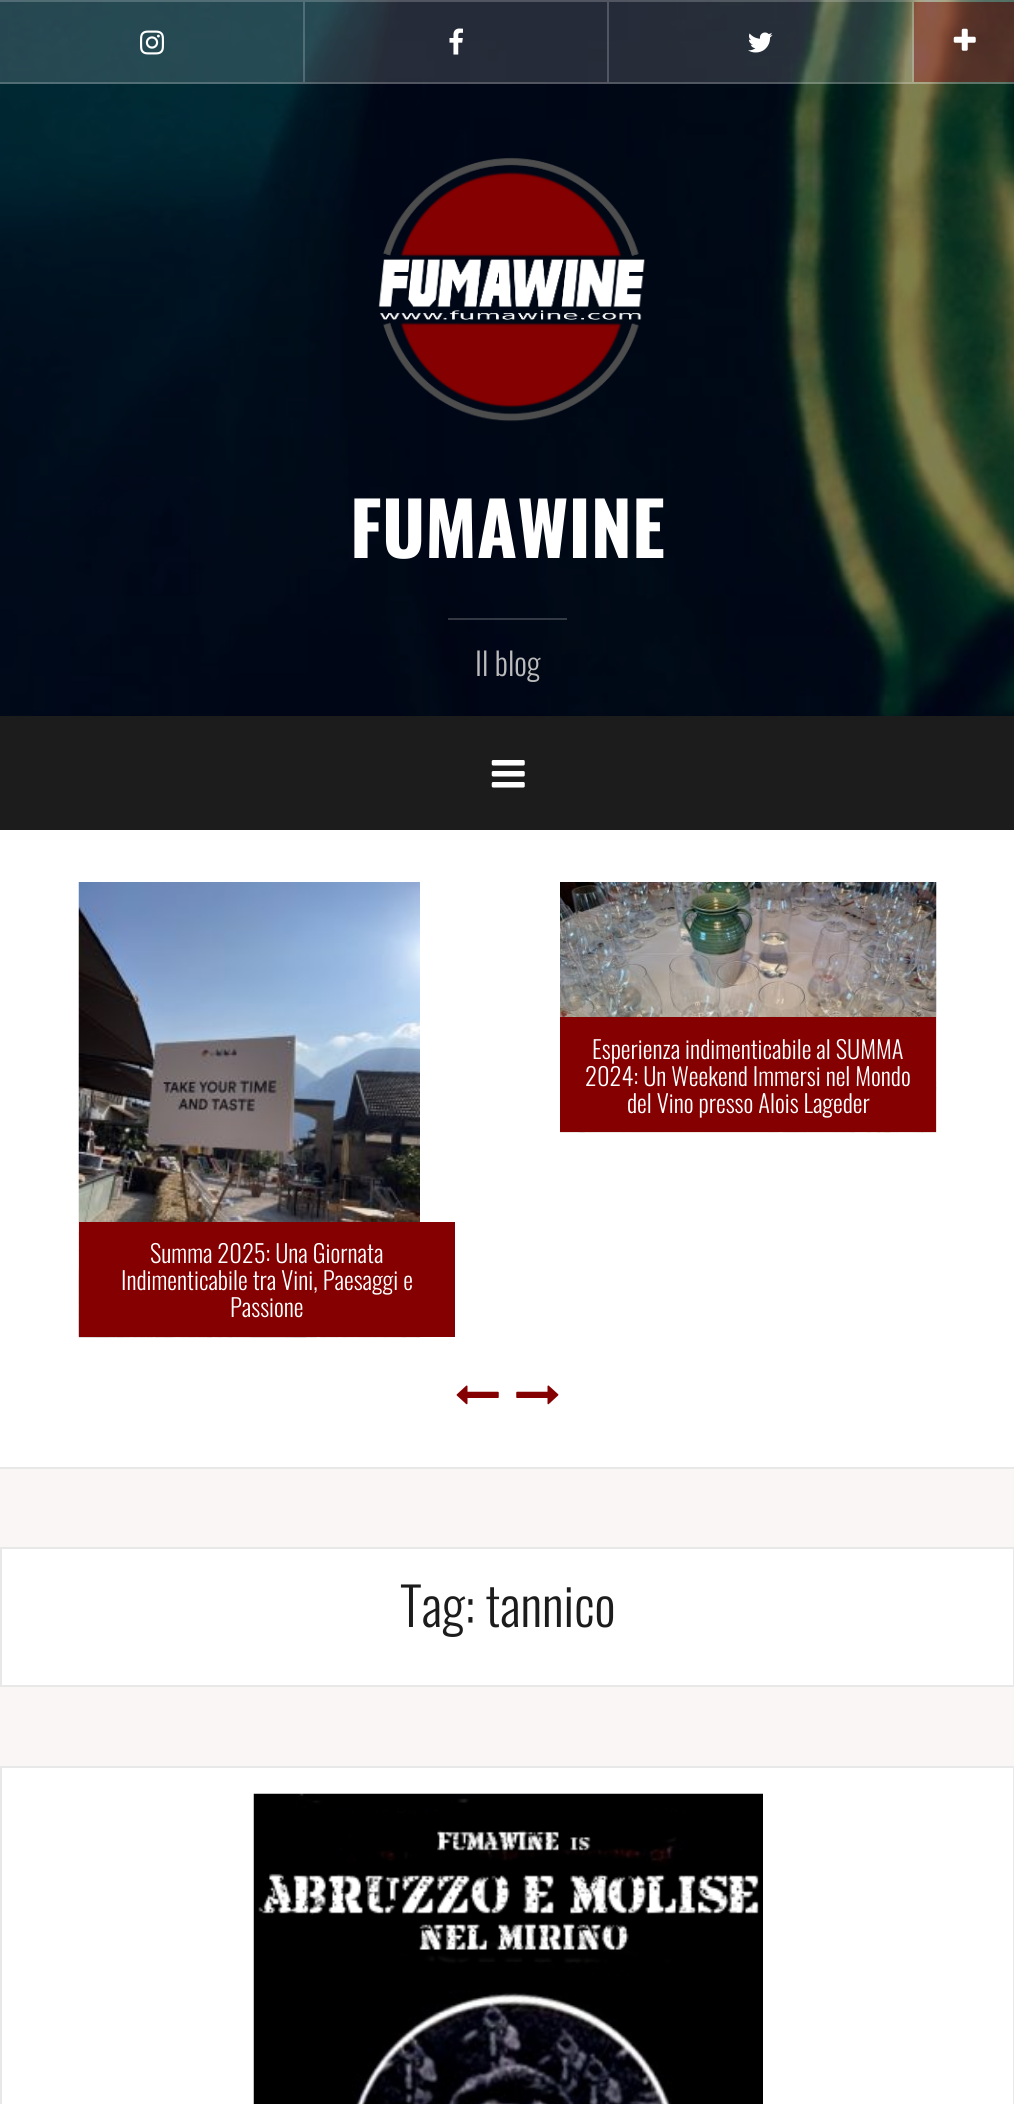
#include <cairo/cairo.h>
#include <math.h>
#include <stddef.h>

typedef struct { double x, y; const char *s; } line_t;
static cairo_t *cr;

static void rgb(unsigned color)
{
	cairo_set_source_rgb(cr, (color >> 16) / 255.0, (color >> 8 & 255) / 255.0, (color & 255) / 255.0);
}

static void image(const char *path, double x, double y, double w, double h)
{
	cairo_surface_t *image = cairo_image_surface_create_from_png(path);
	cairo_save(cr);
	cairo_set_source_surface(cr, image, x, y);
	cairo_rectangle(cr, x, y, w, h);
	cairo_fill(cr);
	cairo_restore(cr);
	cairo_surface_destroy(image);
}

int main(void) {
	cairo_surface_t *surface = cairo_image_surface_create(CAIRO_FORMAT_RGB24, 1014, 2104);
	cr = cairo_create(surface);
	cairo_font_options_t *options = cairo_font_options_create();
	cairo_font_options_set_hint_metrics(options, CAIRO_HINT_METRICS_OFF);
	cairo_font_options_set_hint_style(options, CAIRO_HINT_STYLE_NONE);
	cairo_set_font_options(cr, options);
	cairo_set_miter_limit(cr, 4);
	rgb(0xf9f6f5);
	cairo_paint(cr);
	image("img/1.png", 0, 0, 1014, 716);
	cairo_set_source_rgba(cr, 1, 1, 1, 0.15);
	cairo_rectangle(cr, 0, 0, 1014, 84);
	cairo_fill(cr);
	cairo_set_source_rgba(cr, 1, 1, 1, 0.2);
	cairo_rectangle(cr, 0, 0, 1014, 2);
	cairo_fill(cr);
	cairo_rectangle(cr, 0, 82, 1014, 2);
	cairo_fill(cr);
	cairo_rectangle(cr, 303, 2, 2, 80);
	cairo_fill(cr);
	image("img/2.png", 140, 30, 24, 25);
	rgb(0x525661);
	cairo_rectangle(cr, 607, 2, 2, 80);
	cairo_fill(cr);
	image("img/3.png", 449, 28, 14, 27);
	cairo_set_source_rgba(cr, 1, 1, 1, 0.2);
	cairo_rectangle(cr, 912, 2, 2, 80);
	cairo_fill(cr);
	image("img/4.png", 748, 32, 25, 21);
	cairo_set_source_rgba(cr, 0.522, 0, 0, 0.4);
	cairo_rectangle(cr, 914, 2, 100, 80);
	cairo_fill(cr);
	image("img/5.png", 953, 28, 23, 23);
	image("img/6.png", 378, 157, 267, 265);
	cairo_set_source_rgba(cr, 1, 1, 1, 0.2);
	cairo_rectangle(cr, 448, 618, 119, 2);
	cairo_fill(cr);
	rgb(0x1c1c1c);
	cairo_rectangle(cr, 0, 716, 1014, 114);
	cairo_fill(cr);
	image("img/7.png", 491, 760, 34, 28);
	rgb(0xffffff);
	cairo_rectangle(cr, 0, 830, 1014, 637);
	cairo_fill(cr);
	rgb(0xe8e8e8);
	cairo_rectangle(cr, 0, 1467, 1014, 2);
	cairo_fill(cr);
	image("img/8.png", 560, 882, 377, 251);
	rgb(0x850000);
	cairo_rectangle(cr, 560, 1017, 376, 115);
	cairo_fill(cr);
	image("img/9.png", 78, 882, 342, 456);
	cairo_rectangle(cr, 79, 1222, 376, 115);
	cairo_fill(cr);
	image("img/10.png", 456, 1385, 43, 20);
	image("img/11.png", 516, 1385, 43, 20);
	rgb(0xffffff);
	cairo_rectangle(cr, 1, 1548, 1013, 138);
	cairo_fill_preserve(cr);
	rgb(0xe8e8e8);
	cairo_stroke(cr);
	rgb(0xffffff);
	cairo_rectangle(cr, 1, 1767, 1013, 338);
	cairo_fill_preserve(cr);
	rgb(0xe8e8e8);
	cairo_stroke(cr);
	image("img/12.png", 253, 1793, 510, 311);
	cairo_select_font_face(cr, "Oswald", CAIRO_FONT_SLANT_NORMAL, CAIRO_FONT_WEIGHT_BOLD);
	cairo_set_font_size(cr, 73.5);
	rgb(0xffffff);
	cairo_move_to(cr, 350, 558);
	cairo_show_text(cr, "FUMAWINE");
	cairo_select_font_face(cr, "Oswald Light", CAIRO_FONT_SLANT_NORMAL, CAIRO_FONT_WEIGHT_NORMAL);
	cairo_set_font_size(cr, 31.5);
	rgb(0xbbbbbb);
	cairo_move_to(cr, 475, 676);
	cairo_show_text(cr, "Il blog");
	cairo_set_font_size(cr, 24.5);
	rgb(0xffffff);
	{
		static const line_t items[] = {
			{592, 1059, "Esperienza indimenticabile al SUMMA"},
			{585, 1086, "2024: Un Weekend Immersi nel Mondo"},
			{627, 1113, "del Vino presso Alois Lageder"},
			{150, 1263, "Summa 2025: Una Giornata"},
			{121, 1290, "Indimenticabile tra Vini, Paesaggi e"},
			{230, 1317, "Passione"},
		};
		for (size_t i = 0; i < sizeof items / sizeof *items; i++) {
			cairo_move_to(cr, items[i].x, items[i].y);
			cairo_show_text(cr, items[i].s);
		}
	}
	cairo_set_font_size(cr, 52.5);
	rgb(0x1c1c1c);
	cairo_move_to(cr, 400, 1627);
	cairo_show_text(cr, "Tag: tannico");
	cairo_surface_write_to_png(surface, "page.png");
	cairo_font_options_destroy(options);
	cairo_destroy(cr);
	cairo_surface_destroy(surface);
	return 0;
}
